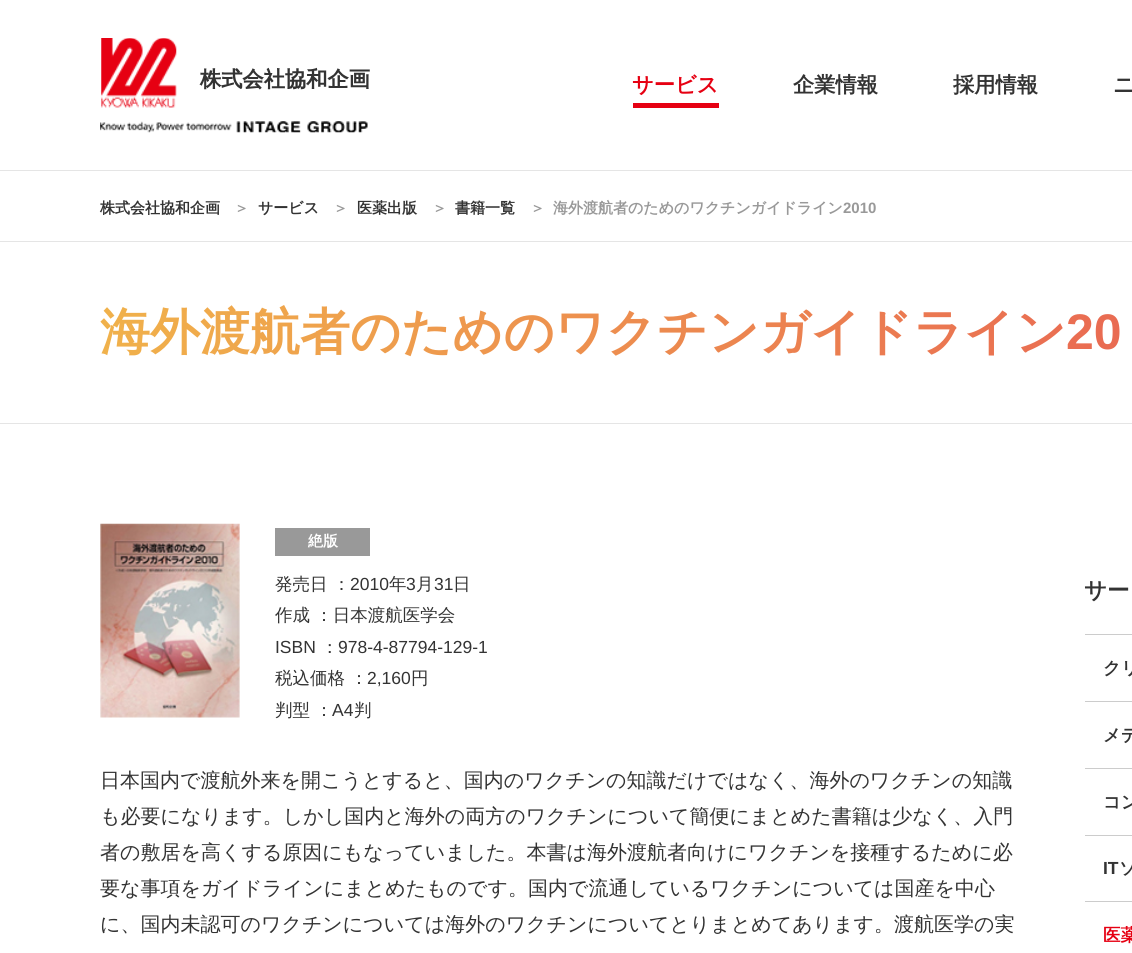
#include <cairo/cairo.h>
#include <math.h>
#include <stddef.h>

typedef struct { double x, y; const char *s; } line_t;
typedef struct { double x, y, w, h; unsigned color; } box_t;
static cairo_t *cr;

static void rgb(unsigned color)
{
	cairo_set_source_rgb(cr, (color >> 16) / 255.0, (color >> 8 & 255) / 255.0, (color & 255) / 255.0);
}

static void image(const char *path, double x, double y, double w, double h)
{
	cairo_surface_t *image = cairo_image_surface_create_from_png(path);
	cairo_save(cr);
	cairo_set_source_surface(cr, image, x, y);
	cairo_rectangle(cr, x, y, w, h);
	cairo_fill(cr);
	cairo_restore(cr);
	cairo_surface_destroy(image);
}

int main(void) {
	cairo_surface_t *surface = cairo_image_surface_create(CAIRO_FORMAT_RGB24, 1132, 953);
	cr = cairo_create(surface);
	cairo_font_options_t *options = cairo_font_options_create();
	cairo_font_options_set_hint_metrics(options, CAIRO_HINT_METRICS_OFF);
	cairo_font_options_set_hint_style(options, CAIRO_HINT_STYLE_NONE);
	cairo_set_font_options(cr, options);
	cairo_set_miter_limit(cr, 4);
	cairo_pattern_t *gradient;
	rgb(0xffffff);
	cairo_paint(cr);
	image("img/1.png", 100, 38, 270, 95);
	{
		static const box_t items[] = {
			{633, 103, 86, 5, 0xe60012},
			{0, 170, 1132, 1, 0xe5e5e5},
			{0, 241, 1132, 1, 0xe5e5e5},
			{0, 423, 1132, 1, 0xe5e5e5},
		};
		for (size_t i = 0; i < sizeof items / sizeof *items; i++) {
			rgb(items[i].color);
			cairo_rectangle(cr, items[i].x, items[i].y, items[i].w, items[i].h);
			cairo_fill(cr);
		}
	}
	image("img/2.png", 100, 523, 140, 195);
	{
		static const box_t items[] = {
			{275, 528, 95, 28, 0x999999},
			{1085, 634, 47, 1, 0xcccccc},
			{1085, 701, 47, 1, 0xcccccc},
			{1085, 768, 47, 1, 0xcccccc},
			{1085, 835, 47, 1, 0xcccccc},
			{1085, 901, 47, 1, 0xcccccc},
		};
		for (size_t i = 0; i < sizeof items / sizeof *items; i++) {
			rgb(items[i].color);
			cairo_rectangle(cr, items[i].x, items[i].y, items[i].w, items[i].h);
			cairo_fill(cr);
		}
	}
	cairo_select_font_face(cr, "WenQuanYi Zen Hei", CAIRO_FONT_SLANT_NORMAL, CAIRO_FONT_WEIGHT_BOLD);
	cairo_set_font_size(cr, 21.25);
	rgb(0xe60012);
	cairo_move_to(cr, 632, 92);
	cairo_show_text(cr, "サービス");
	rgb(0x333333);
	{
		static const line_t items[] = {
			{793, 92, "企業情報"},
			{953, 92, "採用情報"},
			{1113, 92, "ニ"},
		};
		for (size_t i = 0; i < sizeof items / sizeof *items; i++) {
			cairo_move_to(cr, items[i].x, items[i].y);
			cairo_show_text(cr, items[i].s);
		}
	}
	cairo_set_font_size(cr, 15);
	cairo_move_to(cr, 100, 213);
	cairo_show_text(cr, "株式会社協和企画");
	rgb(0x999999);
	cairo_move_to(cr, 234, 213);
	cairo_show_text(cr, "＞");
	rgb(0x333333);
	cairo_move_to(cr, 258, 213);
	cairo_show_text(cr, "サービス");
	rgb(0x999999);
	cairo_move_to(cr, 333, 213);
	cairo_show_text(cr, "＞");
	rgb(0x333333);
	cairo_move_to(cr, 357, 213);
	cairo_show_text(cr, "医薬出版");
	rgb(0x999999);
	cairo_move_to(cr, 432, 213);
	cairo_show_text(cr, "＞");
	rgb(0x333333);
	cairo_move_to(cr, 455, 213);
	cairo_show_text(cr, "書籍一覧");
	rgb(0x999999);
	cairo_move_to(cr, 530, 213);
	cairo_show_text(cr, "＞");
	cairo_move_to(cr, 553, 213);
	cairo_show_text(cr, "海外渡航者のためのワクチンガイドライン");
	cairo_select_font_face(cr, "Liberation Sans", CAIRO_FONT_SLANT_NORMAL, CAIRO_FONT_WEIGHT_BOLD);
	cairo_move_to(cr, 843, 213);
	cairo_show_text(cr, "2010");
	cairo_select_font_face(cr, "WenQuanYi Zen Hei", CAIRO_FONT_SLANT_NORMAL, CAIRO_FONT_WEIGHT_BOLD);
	cairo_set_font_size(cr, 50);
	gradient = cairo_pattern_create_linear(0, 332, 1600, 332);
	cairo_pattern_add_color_stop_rgba(gradient, 0, 0.945, 0.722, 0.29, 1);
	cairo_pattern_add_color_stop_rgba(gradient, 1, 0.902, 0.29, 0.337, 1);
	cairo_set_source(cr, gradient);
	cairo_pattern_destroy(gradient);
	cairo_move_to(cr, 100, 349);
	cairo_show_text(cr, "海外渡航者のためのワクチンガイドライン");
	cairo_select_font_face(cr, "Liberation Sans", CAIRO_FONT_SLANT_NORMAL, CAIRO_FONT_WEIGHT_BOLD);
	cairo_move_to(cr, 1066, 349);
	cairo_show_text(cr, "20");
	cairo_select_font_face(cr, "WenQuanYi Zen Hei", CAIRO_FONT_SLANT_NORMAL, CAIRO_FONT_WEIGHT_BOLD);
	cairo_set_font_size(cr, 15);
	rgb(0xffffff);
	cairo_move_to(cr, 308, 546);
	cairo_show_text(cr, "絶版");
	cairo_select_font_face(cr, "WenQuanYi Zen Hei Medium", CAIRO_FONT_SLANT_NORMAL, CAIRO_FONT_WEIGHT_NORMAL);
	cairo_set_font_size(cr, 17.5);
	rgb(0x333333);
	cairo_move_to(cr, 275, 590);
	cairo_show_text(cr, "発売日 ：");
	cairo_select_font_face(cr, "Liberation Sans", CAIRO_FONT_SLANT_NORMAL, CAIRO_FONT_WEIGHT_NORMAL);
	cairo_move_to(cr, 350, 590);
	cairo_show_text(cr, "2010");
	cairo_select_font_face(cr, "WenQuanYi Zen Hei Medium", CAIRO_FONT_SLANT_NORMAL, CAIRO_FONT_WEIGHT_NORMAL);
	cairo_move_to(cr, 389, 590);
	cairo_show_text(cr, "年");
	cairo_select_font_face(cr, "Liberation Sans", CAIRO_FONT_SLANT_NORMAL, CAIRO_FONT_WEIGHT_NORMAL);
	cairo_move_to(cr, 406, 590);
	cairo_show_text(cr, "3");
	cairo_select_font_face(cr, "WenQuanYi Zen Hei Medium", CAIRO_FONT_SLANT_NORMAL, CAIRO_FONT_WEIGHT_NORMAL);
	cairo_move_to(cr, 416, 590);
	cairo_show_text(cr, "月");
	cairo_select_font_face(cr, "Liberation Sans", CAIRO_FONT_SLANT_NORMAL, CAIRO_FONT_WEIGHT_NORMAL);
	cairo_move_to(cr, 434, 590);
	cairo_show_text(cr, "31");
	cairo_select_font_face(cr, "WenQuanYi Zen Hei Medium", CAIRO_FONT_SLANT_NORMAL, CAIRO_FONT_WEIGHT_NORMAL);
	cairo_move_to(cr, 453, 590);
	cairo_show_text(cr, "日");
	cairo_move_to(cr, 275, 621);
	cairo_show_text(cr, "作成 ：日本渡航医学会");
	cairo_select_font_face(cr, "Liberation Sans", CAIRO_FONT_SLANT_NORMAL, CAIRO_FONT_WEIGHT_NORMAL);
	cairo_move_to(cr, 275, 653);
	cairo_show_text(cr, "ISBN");
	cairo_select_font_face(cr, "WenQuanYi Zen Hei Medium", CAIRO_FONT_SLANT_NORMAL, CAIRO_FONT_WEIGHT_NORMAL);
	cairo_move_to(cr, 321, 653);
	cairo_show_text(cr, "：");
	cairo_select_font_face(cr, "Liberation Sans", CAIRO_FONT_SLANT_NORMAL, CAIRO_FONT_WEIGHT_NORMAL);
	cairo_move_to(cr, 338, 653);
	cairo_show_text(cr, "978-4-87794-129-1");
	cairo_select_font_face(cr, "WenQuanYi Zen Hei Medium", CAIRO_FONT_SLANT_NORMAL, CAIRO_FONT_WEIGHT_NORMAL);
	cairo_move_to(cr, 275, 684);
	cairo_show_text(cr, "税込価格 ：");
	cairo_select_font_face(cr, "Liberation Sans", CAIRO_FONT_SLANT_NORMAL, CAIRO_FONT_WEIGHT_NORMAL);
	cairo_move_to(cr, 367, 684);
	cairo_show_text(cr, "2,160");
	cairo_select_font_face(cr, "WenQuanYi Zen Hei Medium", CAIRO_FONT_SLANT_NORMAL, CAIRO_FONT_WEIGHT_NORMAL);
	cairo_move_to(cr, 411, 684);
	cairo_show_text(cr, "円");
	cairo_move_to(cr, 275, 716);
	cairo_show_text(cr, "判型 ：");
	cairo_select_font_face(cr, "Liberation Sans", CAIRO_FONT_SLANT_NORMAL, CAIRO_FONT_WEIGHT_NORMAL);
	cairo_move_to(cr, 332, 716);
	cairo_show_text(cr, "A4");
	cairo_select_font_face(cr, "WenQuanYi Zen Hei Medium", CAIRO_FONT_SLANT_NORMAL, CAIRO_FONT_WEIGHT_NORMAL);
	cairo_move_to(cr, 354, 716);
	cairo_show_text(cr, "判");
	cairo_set_font_size(cr, 20);
	{
		static const line_t items[] = {
			{100, 787, "日本国内で渡航外来を開こうとすると、国内のワクチンの知識だけではなく、海外のワクチンの知識"},
			{100, 823, "も必要になります。しかし国内と海外の両方のワクチンについて簡便にまとめた書籍は少なく、入門"},
			{100, 859, "者の敷居を高くする原因にもなっていました。本書は海外渡航者向けにワクチンを接種するために必"},
			{100, 895, "要な事項をガイドラインにまとめたものです。国内で流通しているワクチンについては国産を中心"},
			{100, 931, "に、国内未認可のワクチンについては海外のワクチンについてとりまとめてあります。渡航医学の実"},
		};
		for (size_t i = 0; i < sizeof items / sizeof *items; i++) {
			cairo_move_to(cr, items[i].x, items[i].y);
			cairo_show_text(cr, items[i].s);
		}
	}
	cairo_select_font_face(cr, "WenQuanYi Zen Hei", CAIRO_FONT_SLANT_NORMAL, CAIRO_FONT_WEIGHT_BOLD);
	cairo_set_font_size(cr, 22.5);
	cairo_move_to(cr, 1084, 598);
	cairo_show_text(cr, "サー");
	cairo_set_font_size(cr, 17.5);
	{
		static const line_t items[] = {
			{1103, 674, "クリ"},
			{1103, 741, "メデ"},
			{1103, 808, "コン"},
		};
		for (size_t i = 0; i < sizeof items / sizeof *items; i++) {
			cairo_move_to(cr, items[i].x, items[i].y);
			cairo_show_text(cr, items[i].s);
		}
	}
	cairo_select_font_face(cr, "Liberation Sans", CAIRO_FONT_SLANT_NORMAL, CAIRO_FONT_WEIGHT_BOLD);
	cairo_move_to(cr, 1103, 874);
	cairo_show_text(cr, "IT");
	cairo_select_font_face(cr, "WenQuanYi Zen Hei", CAIRO_FONT_SLANT_NORMAL, CAIRO_FONT_WEIGHT_BOLD);
	cairo_move_to(cr, 1119, 874);
	cairo_show_text(cr, "ソ");
	rgb(0xe60012);
	cairo_move_to(cr, 1103, 941);
	cairo_show_text(cr, "医薬");
	cairo_surface_write_to_png(surface, "page.png");
	cairo_font_options_destroy(options);
	cairo_destroy(cr);
	cairo_surface_destroy(surface);
	return 0;
}
